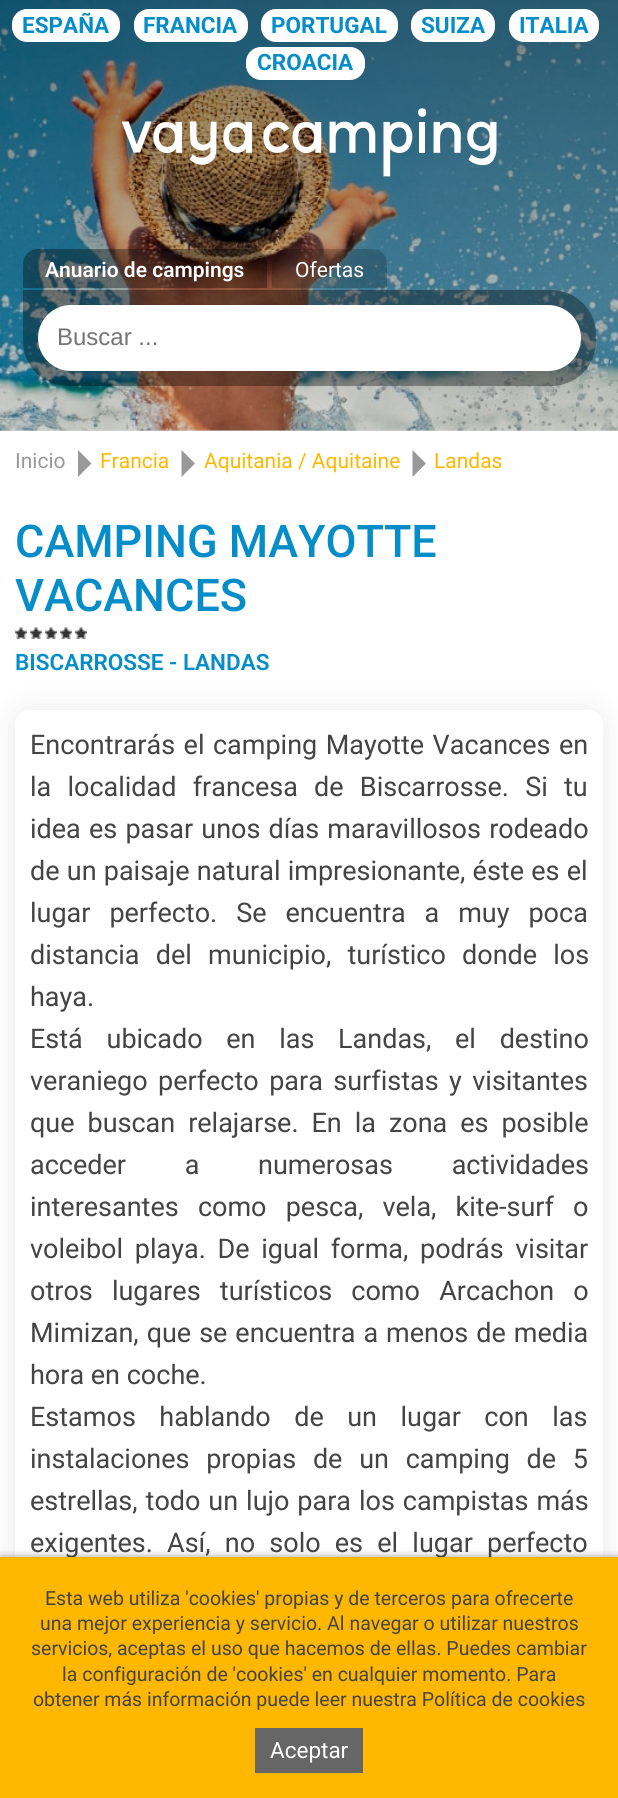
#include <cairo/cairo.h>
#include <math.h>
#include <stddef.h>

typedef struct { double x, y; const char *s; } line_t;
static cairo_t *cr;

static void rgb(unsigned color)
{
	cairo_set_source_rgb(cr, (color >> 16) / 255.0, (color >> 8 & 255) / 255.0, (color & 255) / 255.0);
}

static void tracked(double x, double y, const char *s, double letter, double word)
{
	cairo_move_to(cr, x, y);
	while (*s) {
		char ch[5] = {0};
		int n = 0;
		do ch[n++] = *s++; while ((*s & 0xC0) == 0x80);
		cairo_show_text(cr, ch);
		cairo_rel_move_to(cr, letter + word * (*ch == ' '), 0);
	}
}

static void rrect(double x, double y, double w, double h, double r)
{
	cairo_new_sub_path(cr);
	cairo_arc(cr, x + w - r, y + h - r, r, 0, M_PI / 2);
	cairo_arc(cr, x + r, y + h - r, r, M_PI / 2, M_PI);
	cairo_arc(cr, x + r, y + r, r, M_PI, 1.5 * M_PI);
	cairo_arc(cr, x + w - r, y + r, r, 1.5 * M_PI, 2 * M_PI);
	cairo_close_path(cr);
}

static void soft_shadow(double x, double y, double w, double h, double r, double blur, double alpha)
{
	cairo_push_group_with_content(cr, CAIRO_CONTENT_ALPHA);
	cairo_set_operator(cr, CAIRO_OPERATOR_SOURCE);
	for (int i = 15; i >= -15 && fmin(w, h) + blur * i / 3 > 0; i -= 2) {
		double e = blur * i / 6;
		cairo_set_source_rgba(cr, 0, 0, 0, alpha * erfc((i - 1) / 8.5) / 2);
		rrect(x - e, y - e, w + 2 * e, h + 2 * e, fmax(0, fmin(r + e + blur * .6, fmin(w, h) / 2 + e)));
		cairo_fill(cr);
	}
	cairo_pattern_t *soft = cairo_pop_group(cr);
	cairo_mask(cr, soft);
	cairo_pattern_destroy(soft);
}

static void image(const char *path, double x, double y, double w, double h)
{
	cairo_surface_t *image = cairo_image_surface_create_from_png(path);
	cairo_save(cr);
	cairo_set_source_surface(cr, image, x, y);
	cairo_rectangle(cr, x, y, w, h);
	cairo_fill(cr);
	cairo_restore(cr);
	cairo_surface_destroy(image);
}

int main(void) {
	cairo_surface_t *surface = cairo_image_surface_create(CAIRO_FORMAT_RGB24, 618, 1798);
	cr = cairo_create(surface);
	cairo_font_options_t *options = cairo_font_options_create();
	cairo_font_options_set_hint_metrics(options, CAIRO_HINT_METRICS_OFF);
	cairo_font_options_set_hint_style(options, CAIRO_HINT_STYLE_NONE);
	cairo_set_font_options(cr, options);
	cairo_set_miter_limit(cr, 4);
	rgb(0xffffff);
	cairo_paint(cr);
	image("img/1.png", 0, 0, 618, 431);
	rgb(0xffffff);
	rrect(12, 9, 108, 33, 15);
	cairo_fill(cr);
	rrect(134, 9, 114, 33, 15);
	cairo_fill(cr);
	rrect(261, 9, 137, 33, 15);
	cairo_fill(cr);
	rrect(411, 9, 84, 33, 15);
	cairo_fill(cr);
	rrect(509, 9, 90, 33, 15);
	cairo_fill(cr);
	rrect(246, 47, 119, 33, 15);
	cairo_fill(cr);
	image("img/2.png", 122, 108, 375, 69);
	cairo_set_source_rgba(cr, 0, 0, 0, 0.35);
	cairo_new_path(cr);
	cairo_move_to(cr, 38, 249);
	cairo_line_to(cr, 252, 249);
	cairo_curve_to(cr, 260.5, 249, 267, 255.5, 267, 264);
	cairo_line_to(cr, 267, 288);
	cairo_line_to(cr, 23, 288);
	cairo_line_to(cr, 23, 264);
	cairo_curve_to(cr, 23, 255.5, 29.5, 249, 38, 249);
	cairo_close_path(cr);
	cairo_fill(cr);
	cairo_set_source_rgba(cr, 0, 0, 0, 0.2);
	cairo_new_path(cr);
	cairo_move_to(cr, 287, 249);
	cairo_line_to(cr, 372, 249);
	cairo_curve_to(cr, 380.5, 249, 387, 255.5, 387, 264);
	cairo_line_to(cr, 387, 288);
	cairo_line_to(cr, 272, 288);
	cairo_line_to(cr, 272, 264);
	cairo_curve_to(cr, 272, 255.5, 278.5, 249, 287, 249);
	cairo_close_path(cr);
	cairo_fill(cr);
	cairo_set_source_rgba(cr, 0, 0, 0, 0.35);
	cairo_new_path(cr);
	cairo_move_to(cr, 23, 290);
	cairo_line_to(cr, 551, 290);
	cairo_curve_to(cr, 576, 290, 596, 310, 596, 335);
	cairo_line_to(cr, 596, 341);
	cairo_curve_to(cr, 596, 366, 576, 386, 551, 386);
	cairo_line_to(cr, 68, 386);
	cairo_curve_to(cr, 43, 386, 23, 366, 23, 341);
	cairo_close_path(cr);
	cairo_fill(cr);
	rgb(0xffffff);
	rrect(38, 305, 543, 66, 33);
	cairo_fill(cr);
	rgb(0x999999);
	cairo_new_path(cr);
	cairo_move_to(cr, 78, 477);
	cairo_line_to(cr, 78, 450);
	cairo_line_to(cr, 91.5, 463.5);
	cairo_close_path(cr);
	cairo_fill(cr);
	cairo_new_path(cr);
	cairo_move_to(cr, 181.5, 477);
	cairo_line_to(cr, 181.5, 450);
	cairo_line_to(cr, 195, 463.5);
	cairo_close_path(cr);
	cairo_fill(cr);
	cairo_new_path(cr);
	cairo_move_to(cr, 412.5, 477);
	cairo_line_to(cr, 412.5, 450);
	cairo_line_to(cr, 426, 463.5);
	cairo_close_path(cr);
	cairo_fill(cr);
	image("img/3.png", 15, 627, 12, 12);
	image("img/3.png", 30, 627, 12, 12);
	image("img/3.png", 45, 627, 12, 12);
	image("img/3.png", 60, 627, 12, 12);
	image("img/3.png", 75, 627, 12, 12);
	cairo_save(cr);
	cairo_set_fill_rule(cr, CAIRO_FILL_RULE_EVEN_ODD);
	cairo_new_path(cr);
	cairo_move_to(cr, 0, 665);
	cairo_line_to(cr, 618, 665);
	cairo_line_to(cr, 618, 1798);
	cairo_line_to(cr, 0, 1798);
	cairo_close_path(cr);
	cairo_move_to(cr, 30, 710);
	cairo_line_to(cr, 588, 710);
	cairo_curve_to(cr, 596.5, 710, 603, 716.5, 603, 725);
	cairo_line_to(cr, 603, 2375);
	cairo_curve_to(cr, 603, 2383.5, 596.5, 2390, 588, 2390);
	cairo_line_to(cr, 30, 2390);
	cairo_curve_to(cr, 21.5, 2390, 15, 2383.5, 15, 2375);
	cairo_line_to(cr, 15, 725);
	cairo_curve_to(cr, 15, 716.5, 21.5, 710, 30, 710);
	cairo_close_path(cr);
	cairo_clip(cr);
	rgb(0x000000);
	soft_shadow(15, 711, 588, 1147, 15, 15, 0.09);
	cairo_restore(cr);
	rgb(0x9d9d9d);
	soft_shadow(0, 1557, 618, 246, 0, 4, 1);
	cairo_select_font_face(cr, "Roboto", CAIRO_FONT_SLANT_NORMAL, CAIRO_FONT_WEIGHT_BOLD);
	cairo_set_font_size(cr, 22.5);
	rgb(0x048dc8);
	{
		static const line_t items[] = {
			{22, 33, "ESPAÑA"},
			{143, 33, "FRANCIA"},
			{271, 33, "PORTUGAL"},
			{421, 33, "SUIZA"},
			{519, 33, "ITALIA"},
			{257, 70, "CROACIA"},
		};
		for (size_t i = 0; i < sizeof items / sizeof *items; i++) {
			cairo_move_to(cr, items[i].x, items[i].y);
			cairo_show_text(cr, items[i].s);
		}
	}
	cairo_select_font_face(cr, "Roboto SemiBold", CAIRO_FONT_SLANT_NORMAL, CAIRO_FONT_WEIGHT_NORMAL);
	cairo_set_font_size(cr, 21);
	rgb(0xffffff);
	cairo_move_to(cr, 45, 277);
	cairo_show_text(cr, "Anuario de campings");
	cairo_select_font_face(cr, "Roboto", CAIRO_FONT_SLANT_NORMAL, CAIRO_FONT_WEIGHT_NORMAL);
	cairo_move_to(cr, 295, 277);
	cairo_show_text(cr, "Ofertas");
	cairo_select_font_face(cr, "Liberation Sans", CAIRO_FONT_SLANT_NORMAL, CAIRO_FONT_WEIGHT_NORMAL);
	cairo_set_font_size(cr, 24);
	rgb(0x757575);
	cairo_move_to(cr, 57, 345);
	cairo_show_text(cr, "Buscar ...");
	cairo_select_font_face(cr, "Roboto", CAIRO_FONT_SLANT_NORMAL, CAIRO_FONT_WEIGHT_NORMAL);
	cairo_set_font_size(cr, 21);
	rgb(0x999999);
	cairo_move_to(cr, 15, 468);
	cairo_show_text(cr, "Inicio");
	rgb(0xffb700);
	{
		static const line_t items[] = {
			{100, 468, "Francia"},
			{204, 468, "Aquitania / Aquitaine"},
			{434, 468, "Landas"},
		};
		for (size_t i = 0; i < sizeof items / sizeof *items; i++) {
			cairo_move_to(cr, items[i].x, items[i].y);
			cairo_show_text(cr, items[i].s);
		}
	}
	cairo_select_font_face(cr, "Roboto Medium", CAIRO_FONT_SLANT_NORMAL, CAIRO_FONT_WEIGHT_NORMAL);
	cairo_set_font_size(cr, 45);
	rgb(0x048dc8);
	cairo_move_to(cr, 15, 557);
	cairo_show_text(cr, "CAMPING MAYOTTE");
	cairo_move_to(cr, 15, 611);
	cairo_show_text(cr, "VACANCES");
	cairo_select_font_face(cr, "Roboto SemiBold", CAIRO_FONT_SLANT_NORMAL, CAIRO_FONT_WEIGHT_NORMAL);
	cairo_set_font_size(cr, 22.5);
	cairo_move_to(cr, 15, 670);
	cairo_show_text(cr, "BISCARROSSE - LANDAS");
	cairo_select_font_face(cr, "Roboto", CAIRO_FONT_SLANT_NORMAL, CAIRO_FONT_WEIGHT_NORMAL);
	cairo_set_font_size(cr, 27);
	rgb(0x444444);
	tracked(30, 754, "Encontrarás el camping Mayotte Vacances en", 0, 1.75);
	tracked(30, 796, "la localidad francesa de Biscarrosse. Si tu", 0, 9.5);
	tracked(30, 838, "idea es pasar unos días maravillosos rodeado", 0, 1.5);
	tracked(30, 880, "de un paisaje natural impresionante, éste es el", 0, 0.5);
	tracked(30, 922, "lugar perfecto. Se encuentra a muy poca", 0, 12.25);
	tracked(30, 964, "distancia del municipio, turístico donde los", 0, 9.5);
	cairo_move_to(cr, 30, 1006);
	cairo_show_text(cr, "haya.");
	tracked(30, 1048, "Está ubicado en las Landas, el destino", 0, 17);
	tracked(30, 1090, "veraniego perfecto para surfistas y visitantes", 0, 3.75);
	tracked(30, 1132, "que buscan relajarse. En la zona es posible", 0, 6.25);
	tracked(30, 1174, "acceder a numerosas actividades", 0, 52);
	tracked(30, 1216, "interesantes como pesca, vela, kite-surf o", 0, 12.5);
	tracked(30, 1258, "voleibol playa. De igual forma, podrás visitar", 0, 5);
	tracked(30, 1300, "otros lugares turísticos como Arcachon o", 0, 12.5);
	tracked(30, 1342, "Mimizan, que se encuentra a menos de media", 0, 1.25);
	cairo_move_to(cr, 30, 1384);
	cairo_show_text(cr, "hora en coche.");
	tracked(30, 1426, "Estamos hablando de un lugar con las", 0, 16.75);
	tracked(30, 1468, "instalaciones propias de un camping de 5", 0, 10);
	tracked(30, 1510, "estrellas, todo un lujo para los campistas más", 0, 1.25);
	tracked(30, 1552, "exigentes. Así, no solo es el lugar perfecto", 0, 7.5);
	rgb(0xffb700);
	cairo_rectangle(cr, 0, 1557, 618, 241);
	cairo_fill(cr);
	cairo_set_font_size(cr, 19.5);
	rgb(0x444444);
	{
		static const line_t items[] = {
			{45, 1605, "Esta web utiliza 'cookies' propias y de terceros para ofrecerte"},
			{40, 1630, "una mejor experiencia y servicio. Al navegar o utilizar nuestros"},
			{31, 1655, "servicios, aceptas el uso que hacemos de ellas. Puedes cambiar"},
			{62, 1681, "la configuración de 'cookies' en cualquier momento. Para"},
			{33, 1706, "obtener más información puede leer nuestra Política de cookies"},
		};
		for (size_t i = 0; i < sizeof items / sizeof *items; i++) {
			cairo_move_to(cr, items[i].x, items[i].y);
			cairo_show_text(cr, items[i].s);
		}
	}
	rgb(0x666666);
	cairo_rectangle(cr, 255, 1728, 108, 45);
	cairo_fill(cr);
	cairo_set_font_size(cr, 22.5);
	rgb(0xffffff);
	cairo_move_to(cr, 270, 1758);
	cairo_show_text(cr, "Aceptar");
	cairo_surface_write_to_png(surface, "page.png");
	cairo_font_options_destroy(options);
	cairo_destroy(cr);
	cairo_surface_destroy(surface);
	return 0;
}
